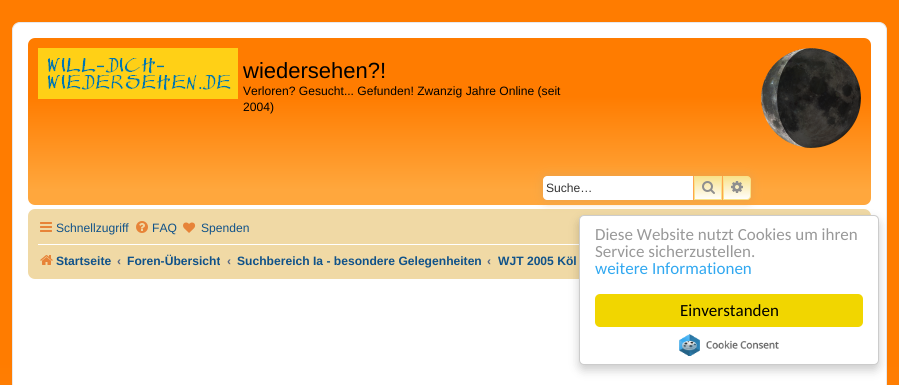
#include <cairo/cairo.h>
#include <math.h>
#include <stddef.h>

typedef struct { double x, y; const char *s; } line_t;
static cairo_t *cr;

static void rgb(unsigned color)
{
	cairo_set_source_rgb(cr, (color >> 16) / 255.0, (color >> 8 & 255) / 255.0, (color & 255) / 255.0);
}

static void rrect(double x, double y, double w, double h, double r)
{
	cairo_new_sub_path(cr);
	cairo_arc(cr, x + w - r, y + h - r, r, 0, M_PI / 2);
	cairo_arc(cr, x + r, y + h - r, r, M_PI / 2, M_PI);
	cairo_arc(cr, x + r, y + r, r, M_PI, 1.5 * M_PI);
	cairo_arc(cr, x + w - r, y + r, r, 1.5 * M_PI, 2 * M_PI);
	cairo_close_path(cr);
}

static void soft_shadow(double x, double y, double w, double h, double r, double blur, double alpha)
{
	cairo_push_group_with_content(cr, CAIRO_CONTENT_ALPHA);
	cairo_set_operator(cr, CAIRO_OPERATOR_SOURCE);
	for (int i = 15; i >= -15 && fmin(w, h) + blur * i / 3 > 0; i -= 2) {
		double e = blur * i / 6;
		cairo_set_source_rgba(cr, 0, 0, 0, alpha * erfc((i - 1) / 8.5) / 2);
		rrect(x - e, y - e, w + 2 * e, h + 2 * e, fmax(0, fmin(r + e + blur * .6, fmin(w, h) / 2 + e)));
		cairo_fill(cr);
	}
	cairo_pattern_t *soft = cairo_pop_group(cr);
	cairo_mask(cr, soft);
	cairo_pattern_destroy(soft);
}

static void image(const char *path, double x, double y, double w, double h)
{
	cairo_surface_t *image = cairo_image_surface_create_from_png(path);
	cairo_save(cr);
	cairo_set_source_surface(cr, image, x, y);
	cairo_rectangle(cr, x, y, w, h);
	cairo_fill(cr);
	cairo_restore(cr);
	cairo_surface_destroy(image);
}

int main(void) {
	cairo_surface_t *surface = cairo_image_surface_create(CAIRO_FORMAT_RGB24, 899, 385);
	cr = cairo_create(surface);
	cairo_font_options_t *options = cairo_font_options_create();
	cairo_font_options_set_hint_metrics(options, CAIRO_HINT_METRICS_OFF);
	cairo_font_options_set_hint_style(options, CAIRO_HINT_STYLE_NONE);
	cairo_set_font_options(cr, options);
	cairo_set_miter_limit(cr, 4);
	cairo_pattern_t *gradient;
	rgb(0xffffff);
	cairo_paint(cr);
	gradient = cairo_pattern_create_linear(449, 0, 450, 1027);
	cairo_pattern_add_color_stop_rgba(gradient, 0, 1, 0.718, 0.42, 1);
	cairo_pattern_add_color_stop_rgba(gradient, 0, 1, 0.486, 0, 1);
	cairo_pattern_add_color_stop_rgba(gradient, 0.35, 1, 0.486, 0, 1);
	cairo_pattern_add_color_stop_rgba(gradient, 0.91, 1, 0.655, 0.239, 1);
	cairo_pattern_add_color_stop_rgba(gradient, 1, 1, 0.655, 0.239, 1);
	cairo_pattern_add_color_stop_rgba(gradient, 1, 1, 0.498, 0.016, 1);
	cairo_pattern_add_color_stop_rgba(gradient, 1, 1, 0.655, 0.239, 1);
	cairo_set_source(cr, gradient);
	cairo_pattern_destroy(gradient);
	cairo_rectangle(cr, 0, 0, 899, 385);
	cairo_fill(cr);
	rgb(0xffffff);
	rrect(12.5, 22.5, 874, 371, 7.5);
	cairo_fill_preserve(cr);
	rgb(0xe6e9ed);
	cairo_set_line_width(cr, 1);
	cairo_stroke(cr);
	gradient = cairo_pattern_create_linear(450, 38, 450, 205);
	cairo_pattern_add_color_stop_rgba(gradient, 0, 1, 0.718, 0.42, 1);
	cairo_pattern_add_color_stop_rgba(gradient, 0, 1, 0.486, 0, 1);
	cairo_pattern_add_color_stop_rgba(gradient, 0.35, 1, 0.486, 0, 1);
	cairo_pattern_add_color_stop_rgba(gradient, 0.91, 1, 0.655, 0.239, 1);
	cairo_pattern_add_color_stop_rgba(gradient, 1, 1, 0.655, 0.239, 1);
	cairo_pattern_add_color_stop_rgba(gradient, 1, 1, 0.498, 0.016, 1);
	cairo_pattern_add_color_stop_rgba(gradient, 1, 1, 0.655, 0.239, 1);
	cairo_set_source(cr, gradient);
	cairo_pattern_destroy(gradient);
	rrect(28, 38, 843, 167, 7);
	cairo_fill(cr);
	image("img/1.png", 38, 48, 200, 51);
	image("img/2.png", 761, 48, 100, 100);
	rgb(0xf0d9a5);
	rrect(28, 209, 843, 70, 7);
	cairo_fill(cr);
	rgb(0xe9a24d);
	soft_shadow(543, 176, 208, 24, 4, 5, 1);
	rgb(0xffffff);
	cairo_new_path(cr);
	cairo_move_to(cr, 547, 176);
	cairo_line_to(cr, 693, 176);
	cairo_line_to(cr, 693, 200);
	cairo_line_to(cr, 547, 200);
	cairo_curve_to(cr, 545, 200, 543, 198, 543, 196);
	cairo_line_to(cr, 543, 180);
	cairo_curve_to(cr, 543, 178, 545, 176, 547, 176);
	cairo_close_path(cr);
	cairo_fill(cr);
	gradient = cairo_pattern_create_linear(708, 176, 708, 200);
	cairo_pattern_add_color_stop_rgba(gradient, 0, 0.976, 0.886, 0.537, 1);
	cairo_pattern_add_color_stop_rgba(gradient, 1, 1, 1, 1, 1);
	cairo_set_source(cr, gradient);
	cairo_pattern_destroy(gradient);
	cairo_rectangle(cr, 695, 177, 26, 22);
	cairo_fill(cr);
	cairo_rectangle(cr, 694.5, 176.5, 27, 23);
	rgb(0xf9e289);
	cairo_stroke(cr);
	rgb(0xffa64d);
	cairo_rectangle(cr, 722, 176, 1, 24);
	cairo_fill(cr);
	cairo_rectangle(cr, 693, 176, 1, 24);
	cairo_fill(cr);
	image("img/3.png", 702, 181, 13, 13);
	gradient = cairo_pattern_create_linear(737, 176, 737, 200);
	cairo_pattern_add_color_stop_rgba(gradient, 0, 0.976, 0.886, 0.537, 1);
	cairo_pattern_add_color_stop_rgba(gradient, 1, 1, 1, 1, 1);
	cairo_set_source(cr, gradient);
	cairo_pattern_destroy(gradient);
	cairo_new_path(cr);
	cairo_move_to(cr, 723.5, 176.5);
	cairo_line_to(cr, 747, 176.5);
	cairo_curve_to(cr, 749, 176.5, 750.5, 178, 750.5, 180);
	cairo_line_to(cr, 750.5, 196);
	cairo_curve_to(cr, 750.5, 198, 749, 199.5, 747, 199.5);
	cairo_line_to(cr, 723.5, 199.5);
	cairo_close_path(cr);
	cairo_fill_preserve(cr);
	rgb(0xf9e289);
	cairo_stroke(cr);
	image("img/4.png", 731, 181, 12, 12);
	image("img/5.png", 40, 222, 12, 10);
	image("img/6.png", 136, 221, 12, 12);
	image("img/7.png", 183, 222, 13, 11);
	rgb(0xffffff);
	cairo_rectangle(cr, 38, 244, 541, 1);
	cairo_fill(cr);
	image("img/8.png", 40, 255, 13, 10);
	rgb(0x000000);
	soft_shadow(579, 220, 300, 150, 5, 5, 0.2);
	rgb(0xffffff);
	rrect(579.5, 215.5, 299, 149, 4.5);
	cairo_fill_preserve(cr);
	rgb(0xcccccc);
	cairo_stroke(cr);
	rgb(0xf1d600);
	rrect(595, 294, 268, 33, 5);
	cairo_fill(cr);
	image("img/9.png", 679, 334, 100, 22);
	cairo_select_font_face(cr, "Liberation Sans", CAIRO_FONT_SLANT_NORMAL, CAIRO_FONT_WEIGHT_NORMAL);
	cairo_set_font_size(cr, 22);
	rgb(0x000000);
	cairo_move_to(cr, 243, 78);
	cairo_show_text(cr, "wiedersehen?!");
	cairo_set_font_size(cr, 12.1);
	cairo_move_to(cr, 243, 95);
	cairo_show_text(cr, "Verloren? Gesucht... Gefunden! Zwanzig Jahre Online (seit");
	cairo_move_to(cr, 243, 111);
	cairo_show_text(cr, "2004)");
	rgb(0x333333);
	cairo_move_to(cr, 546, 192);
	cairo_show_text(cr, "Suche…");
	rgb(0x105289);
	{
		static const line_t items[] = {
			{56, 232, "Schnellzugriff"},
			{152, 232, "FAQ"},
			{201, 232, "Spenden"},
		};
		for (size_t i = 0; i < sizeof items / sizeof *items; i++) {
			cairo_move_to(cr, items[i].x, items[i].y);
			cairo_show_text(cr, items[i].s);
		}
	}
	cairo_select_font_face(cr, "Liberation Sans", CAIRO_FONT_SLANT_NORMAL, CAIRO_FONT_WEIGHT_BOLD);
	cairo_move_to(cr, 56, 265);
	cairo_show_text(cr, "Startseite");
	rgb(0x536482);
	cairo_move_to(cr, 117, 265);
	cairo_show_text(cr, "‹");
	rgb(0x105289);
	cairo_move_to(cr, 127, 265);
	cairo_show_text(cr, "Foren-Übersicht");
	rgb(0x536482);
	cairo_move_to(cr, 227, 265);
	cairo_show_text(cr, "‹");
	rgb(0x105289);
	cairo_move_to(cr, 237, 265);
	cairo_show_text(cr, "Suchbereich Ia - besondere Gelegenheiten");
	rgb(0x536482);
	cairo_move_to(cr, 487, 265);
	cairo_show_text(cr, "‹");
	rgb(0x105289);
	cairo_move_to(cr, 498, 265);
	cairo_show_text(cr, "WJT 2005 Köl");
	cairo_select_font_face(cr, "Carlito", CAIRO_FONT_SLANT_NORMAL, CAIRO_FONT_WEIGHT_NORMAL);
	cairo_set_font_size(cr, 17);
	rgb(0x999999);
	cairo_move_to(cr, 595, 240);
	cairo_show_text(cr, "Diese Website nutzt Cookies um ihren");
	cairo_move_to(cr, 595, 257);
	cairo_show_text(cr, "Service sicherzustellen.");
	rgb(0x31a8f0);
	cairo_move_to(cr, 595, 274);
	cairo_show_text(cr, "weitere Informationen");
	rgb(0x000000);
	cairo_move_to(cr, 680, 316);
	cairo_show_text(cr, "Einverstanden");
	cairo_surface_write_to_png(surface, "page.png");
	cairo_font_options_destroy(options);
	cairo_destroy(cr);
	cairo_surface_destroy(surface);
	return 0;
}
